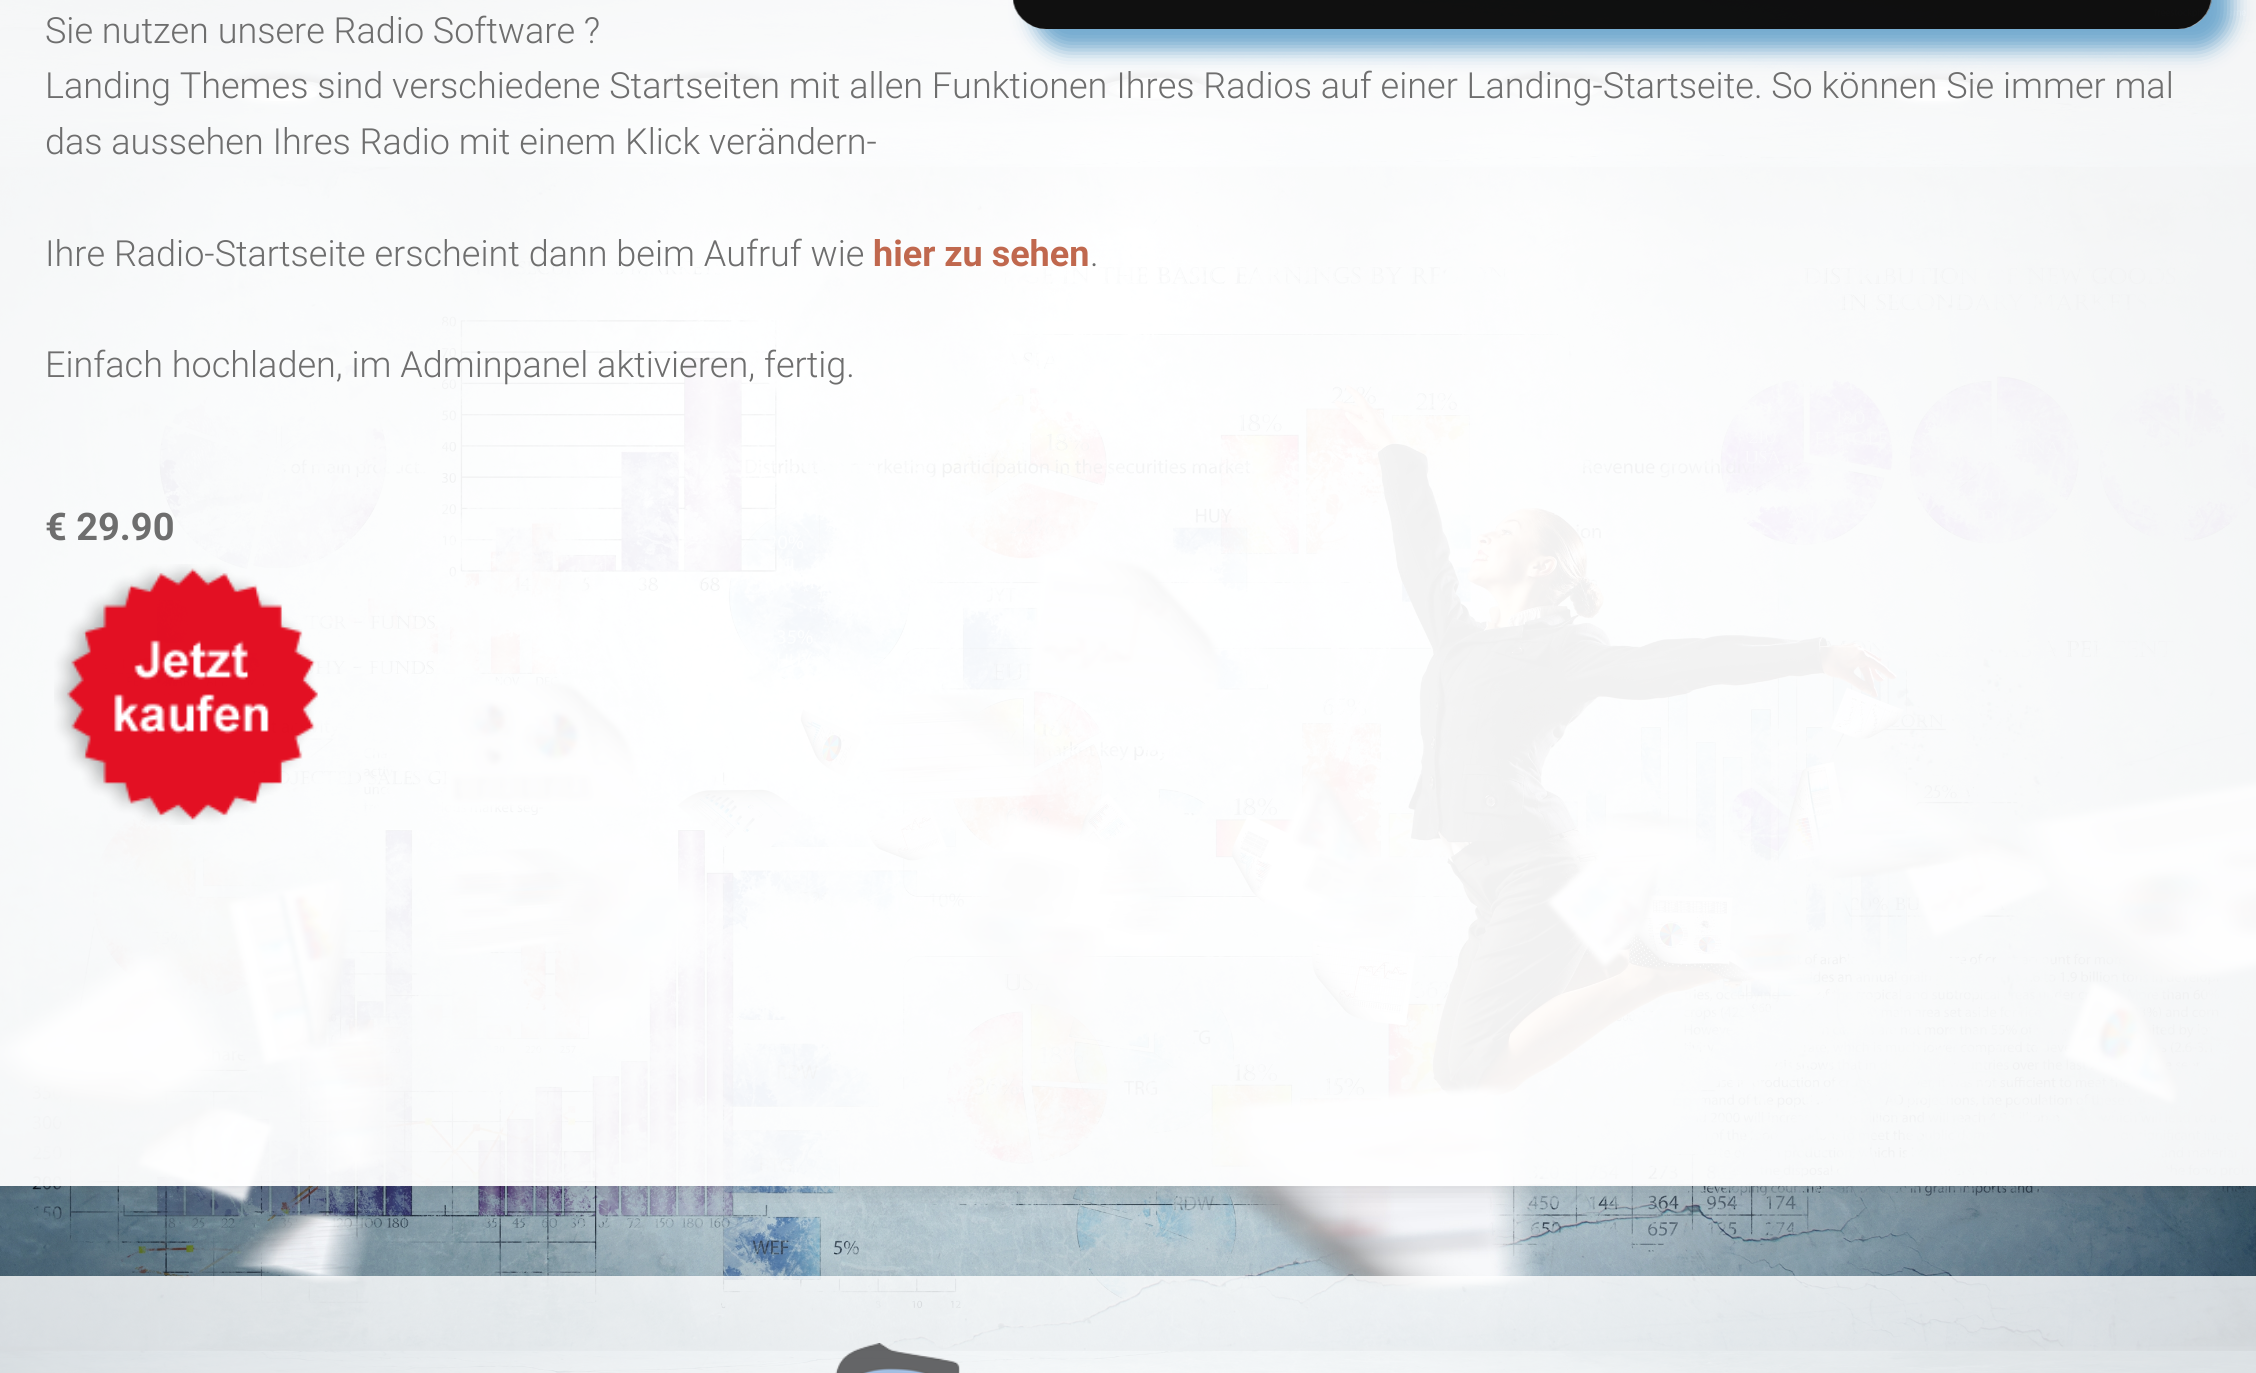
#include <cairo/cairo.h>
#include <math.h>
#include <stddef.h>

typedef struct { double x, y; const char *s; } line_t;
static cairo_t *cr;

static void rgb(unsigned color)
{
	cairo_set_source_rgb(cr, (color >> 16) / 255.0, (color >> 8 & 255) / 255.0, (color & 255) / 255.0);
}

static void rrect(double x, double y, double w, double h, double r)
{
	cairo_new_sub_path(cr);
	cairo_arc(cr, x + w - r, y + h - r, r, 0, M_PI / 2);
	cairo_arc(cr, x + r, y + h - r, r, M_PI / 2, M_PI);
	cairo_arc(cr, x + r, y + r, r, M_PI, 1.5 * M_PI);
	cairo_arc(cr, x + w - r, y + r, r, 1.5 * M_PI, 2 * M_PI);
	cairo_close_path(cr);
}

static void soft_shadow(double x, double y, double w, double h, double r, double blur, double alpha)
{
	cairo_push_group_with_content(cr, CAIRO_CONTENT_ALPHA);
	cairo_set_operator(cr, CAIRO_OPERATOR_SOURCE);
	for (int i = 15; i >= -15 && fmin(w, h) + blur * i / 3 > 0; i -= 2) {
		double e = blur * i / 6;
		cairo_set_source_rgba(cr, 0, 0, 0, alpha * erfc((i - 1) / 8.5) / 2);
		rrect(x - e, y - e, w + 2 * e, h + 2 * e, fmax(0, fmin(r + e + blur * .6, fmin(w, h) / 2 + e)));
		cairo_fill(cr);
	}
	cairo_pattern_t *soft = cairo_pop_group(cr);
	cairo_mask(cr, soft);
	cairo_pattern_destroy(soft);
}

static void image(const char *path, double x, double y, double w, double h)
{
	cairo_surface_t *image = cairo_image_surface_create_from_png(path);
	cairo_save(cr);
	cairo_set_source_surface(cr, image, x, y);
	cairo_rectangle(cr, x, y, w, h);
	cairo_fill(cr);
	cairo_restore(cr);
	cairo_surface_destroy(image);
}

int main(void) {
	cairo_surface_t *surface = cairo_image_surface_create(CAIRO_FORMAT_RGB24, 2256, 1373);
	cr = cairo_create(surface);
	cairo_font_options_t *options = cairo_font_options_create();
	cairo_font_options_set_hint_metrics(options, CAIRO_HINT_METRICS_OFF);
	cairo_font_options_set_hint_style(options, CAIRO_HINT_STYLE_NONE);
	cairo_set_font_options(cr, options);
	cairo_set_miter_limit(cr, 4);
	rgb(0xffffff);
	cairo_paint(cr);
	image("img/1.png", 0, 0, 2256, 1373);
	cairo_save(cr);
	cairo_set_fill_rule(cr, CAIRO_FILL_RULE_EVEN_ODD);
	cairo_new_path(cr);
	cairo_move_to(cr, 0, 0);
	cairo_line_to(cr, 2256, 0);
	cairo_line_to(cr, 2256, 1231);
	cairo_line_to(cr, 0, 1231);
	cairo_close_path(cr);
	cairo_move_to(cr, 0, -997);
	cairo_line_to(cr, 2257, -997);
	cairo_line_to(cr, 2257, 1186);
	cairo_line_to(cr, 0, 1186);
	cairo_close_path(cr);
	cairo_clip(cr);
	rgb(0x000000);
	soft_shadow(0, -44, 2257, 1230, 0, 14.5, 0.16);
	cairo_restore(cr);
	cairo_set_source_rgba(cr, 1, 1, 1, 0.94);
	cairo_rectangle(cr, 0, 0, 2256, 1186);
	cairo_fill(cr);
	cairo_save(cr);
	cairo_set_fill_rule(cr, CAIRO_FILL_RULE_EVEN_ODD);
	cairo_new_path(cr);
	cairo_move_to(cr, 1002, 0);
	cairo_line_to(cr, 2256, 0);
	cairo_line_to(cr, 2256, 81);
	cairo_line_to(cr, 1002, 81);
	cairo_close_path(cr);
	cairo_move_to(cr, 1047, -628);
	cairo_line_to(cr, 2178, -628);
	cairo_curve_to(cr, 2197, -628, 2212, -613, 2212, -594);
	cairo_line_to(cr, 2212, -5);
	cairo_curve_to(cr, 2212, 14, 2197, 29, 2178, 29);
	cairo_line_to(cr, 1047, 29);
	cairo_curve_to(cr, 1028, 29, 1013, 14, 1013, -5);
	cairo_line_to(cr, 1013, -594);
	cairo_curve_to(cr, 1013, -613, 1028, -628, 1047, -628);
	cairo_close_path(cr);
	cairo_clip(cr);
	rgb(0x6ca6cd);
	soft_shadow(1033, -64, 1199, 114, 34, 10, 0.94);
	cairo_restore(cr);
	image("img/2.png", 1013, 0, 1199, 29);
	image("img/3.png", 54, 564, 264, 261);
	cairo_set_source_rgba(cr, 1, 1, 1, 0.8);
	cairo_rectangle(cr, 0, 1276, 2256, 97);
	cairo_fill(cr);
	image("img/4.png", 835, 1343, 125, 30);
	cairo_select_font_face(cr, "Roboto Light", CAIRO_FONT_SLANT_NORMAL, CAIRO_FONT_WEIGHT_NORMAL);
	cairo_set_font_size(cr, 36);
	rgb(0x6e6e6e);
	{
		static const line_t items[] = {
			{45, 43, "Sie nutzen unsere Radio Software ?"},
			{45, 98, "Landing Themes sind verschiedene Startseiten mit allen Funktionen Ihres Radios auf einer Landing-Startseite. So können Sie immer mal"},
			{45, 154, "das aussehen Ihres Radio mit einem Klick verändern-"},
			{45, 266, "Ihre Radio-Startseite erscheint dann beim Aufruf wie"},
		};
		for (size_t i = 0; i < sizeof items / sizeof *items; i++) {
			cairo_move_to(cr, items[i].x, items[i].y);
			cairo_show_text(cr, items[i].s);
		}
	}
	cairo_select_font_face(cr, "Roboto", CAIRO_FONT_SLANT_NORMAL, CAIRO_FONT_WEIGHT_BOLD);
	rgb(0xc0684e);
	cairo_move_to(cr, 873, 266);
	cairo_show_text(cr, "hier zu sehen");
	cairo_select_font_face(cr, "Roboto Light", CAIRO_FONT_SLANT_NORMAL, CAIRO_FONT_WEIGHT_NORMAL);
	rgb(0x6e6e6e);
	cairo_move_to(cr, 1090, 266);
	cairo_show_text(cr, ".");
	cairo_move_to(cr, 45, 377);
	cairo_show_text(cr, "Einfach hochladen, im Adminpanel aktivieren, fertig.");
	cairo_select_font_face(cr, "Roboto", CAIRO_FONT_SLANT_NORMAL, CAIRO_FONT_WEIGHT_BOLD);
	cairo_set_font_size(cr, 38);
	cairo_move_to(cr, 45, 540);
	cairo_show_text(cr, "€ 29.90");
	cairo_surface_write_to_png(surface, "page.png");
	cairo_font_options_destroy(options);
	cairo_destroy(cr);
	cairo_surface_destroy(surface);
	return 0;
}
